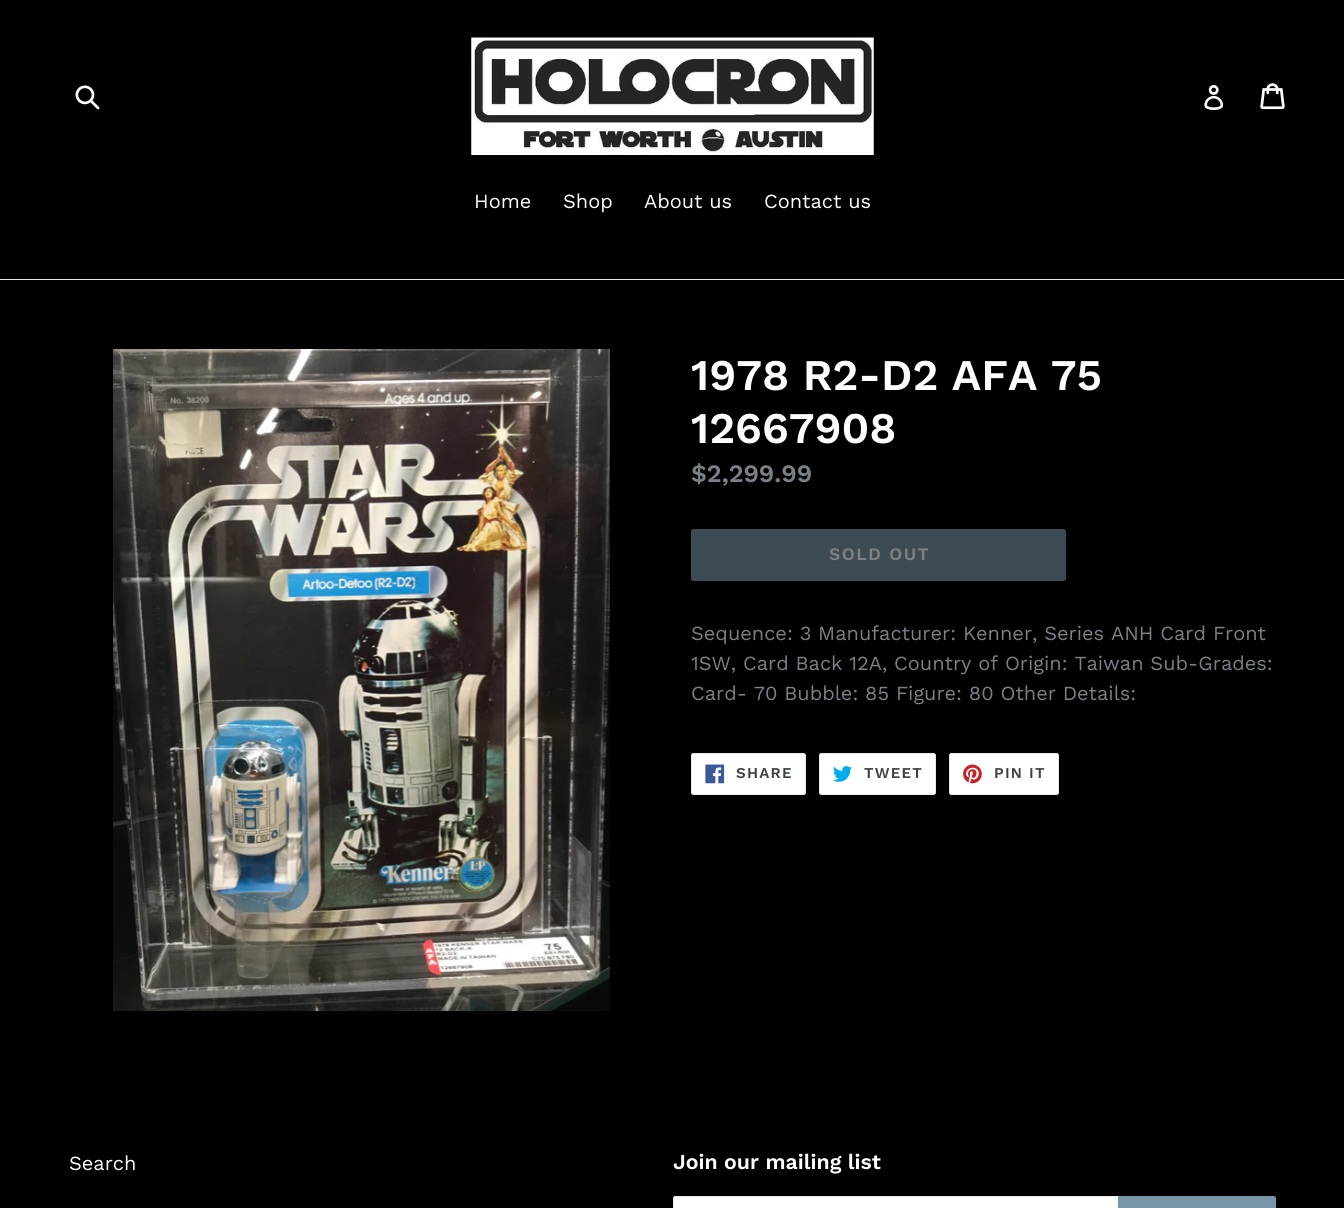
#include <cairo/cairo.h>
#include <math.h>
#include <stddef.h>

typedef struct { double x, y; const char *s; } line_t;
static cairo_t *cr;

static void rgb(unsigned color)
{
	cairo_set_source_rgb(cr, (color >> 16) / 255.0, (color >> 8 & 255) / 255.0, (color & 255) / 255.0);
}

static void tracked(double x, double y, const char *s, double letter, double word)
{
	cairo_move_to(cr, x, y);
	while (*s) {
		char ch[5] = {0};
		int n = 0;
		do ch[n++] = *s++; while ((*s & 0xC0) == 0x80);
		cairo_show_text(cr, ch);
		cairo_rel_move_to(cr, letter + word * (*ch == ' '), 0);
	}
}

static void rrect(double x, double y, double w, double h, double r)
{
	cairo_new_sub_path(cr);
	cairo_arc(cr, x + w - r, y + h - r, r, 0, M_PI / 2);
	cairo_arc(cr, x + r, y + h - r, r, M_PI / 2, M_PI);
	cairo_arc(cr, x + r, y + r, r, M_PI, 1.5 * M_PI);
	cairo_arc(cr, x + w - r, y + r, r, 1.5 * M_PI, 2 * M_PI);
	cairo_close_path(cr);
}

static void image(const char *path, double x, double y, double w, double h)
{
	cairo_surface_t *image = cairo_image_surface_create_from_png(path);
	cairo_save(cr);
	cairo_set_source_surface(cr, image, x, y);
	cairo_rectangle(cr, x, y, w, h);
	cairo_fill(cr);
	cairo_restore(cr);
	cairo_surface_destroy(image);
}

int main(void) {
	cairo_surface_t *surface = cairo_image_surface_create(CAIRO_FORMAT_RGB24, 1344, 1208);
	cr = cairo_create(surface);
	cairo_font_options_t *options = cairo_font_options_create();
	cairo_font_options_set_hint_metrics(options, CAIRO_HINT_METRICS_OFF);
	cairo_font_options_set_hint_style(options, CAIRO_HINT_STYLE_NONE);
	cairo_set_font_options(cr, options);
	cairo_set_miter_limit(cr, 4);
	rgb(0x000000);
	cairo_paint(cr);
	image("img/1.png", 75, 85, 25, 25);
	image("img/2.png", 471, 37, 403, 118);
	image("img/3.png", 1204, 85, 20, 25);
	image("img/4.png", 1260, 83, 25, 27);
	rgb(0xe8e9eb);
	cairo_rectangle(cr, 0, 279, 1344, 1);
	cairo_fill(cr);
	image("img/5.png", 113, 349, 497, 662);
	rgb(0x3c4b54);
	rrect(691, 529, 375, 52, 2.5);
	cairo_fill(cr);
	rgb(0xffffff);
	rrect(691.5, 753.5, 114, 41, 2);
	cairo_fill_preserve(cr);
	rgb(0xe8e9eb);
	cairo_set_line_width(cr, 1);
	cairo_stroke(cr);
	image("img/6.png", 705, 764, 20, 20);
	rgb(0xffffff);
	rrect(819.5, 753.5, 116, 41, 2);
	cairo_fill_preserve(cr);
	rgb(0xe8e9eb);
	cairo_stroke(cr);
	image("img/7.png", 833, 766, 19, 16);
	rgb(0xffffff);
	rrect(949.5, 753.5, 109, 41, 2);
	cairo_fill_preserve(cr);
	rgb(0xe8e9eb);
	cairo_stroke(cr);
	image("img/8.png", 963, 764, 19, 20);
	rgb(0xffffff);
	cairo_new_path(cr);
	cairo_move_to(cr, 675.5, 1196);
	cairo_line_to(cr, 1118, 1196);
	cairo_line_to(cr, 1118, 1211);
	cairo_line_to(cr, 675.5, 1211);
	cairo_curve_to(cr, 674, 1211, 673, 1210, 673, 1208.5);
	cairo_line_to(cr, 673, 1198.5);
	cairo_curve_to(cr, 673, 1197, 674, 1196, 675.5, 1196);
	cairo_close_path(cr);
	cairo_fill(cr);
	rgb(0xe8e9eb);
	cairo_rectangle(cr, 674, 1196, 444, 1);
	cairo_fill(cr);
	cairo_rectangle(cr, 673, 1198, 1, 10);
	cairo_fill(cr);
	rgb(0x7796a8);
	cairo_new_path(cr);
	cairo_move_to(cr, 1118, 1196);
	cairo_line_to(cr, 1273.5, 1196);
	cairo_curve_to(cr, 1275, 1196, 1276, 1197, 1276, 1198.5);
	cairo_line_to(cr, 1276, 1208.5);
	cairo_curve_to(cr, 1276, 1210, 1275, 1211, 1273.5, 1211);
	cairo_line_to(cr, 1118, 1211);
	cairo_close_path(cr);
	cairo_fill(cr);
	cairo_select_font_face(cr, "Work Sans", CAIRO_FONT_SLANT_NORMAL, CAIRO_FONT_WEIGHT_NORMAL);
	cairo_set_font_size(cr, 20);
	rgb(0xffffff);
	{
		static const line_t items[] = {
			{474, 208, "Home"},
			{563, 208, "Shop"},
			{644, 208, "About us"},
			{764, 208, "Contact us"},
		};
		for (size_t i = 0; i < sizeof items / sizeof *items; i++) {
			cairo_move_to(cr, items[i].x, items[i].y);
			cairo_show_text(cr, items[i].s);
		}
	}
	cairo_select_font_face(cr, "Work Sans SemiBold", CAIRO_FONT_SLANT_NORMAL, CAIRO_FONT_WEIGHT_NORMAL);
	cairo_set_font_size(cr, 43.75);
	cairo_move_to(cr, 691, 390);
	cairo_show_text(cr, "1978 R2-D2 AFA 75");
	cairo_move_to(cr, 691, 443);
	cairo_show_text(cr, "12667908");
	cairo_set_font_size(cr, 25);
	rgb(0x788188);
	cairo_move_to(cr, 691, 482);
	cairo_show_text(cr, "$2,299.99");
	cairo_set_font_size(cr, 17.5);
	rgb(0x808080);
	tracked(829, 560, "SOLD OUT", 1.5, 0);
	cairo_select_font_face(cr, "Work Sans", CAIRO_FONT_SLANT_NORMAL, CAIRO_FONT_WEIGHT_NORMAL);
	cairo_set_font_size(cr, 20);
	rgb(0x788188);
	{
		static const line_t items[] = {
			{691, 640, "Sequence: 3 Manufacturer: Kenner, Series ANH Card Front"},
			{691, 670, "1SW, Card Back 12A, Country of Origin: Taiwan Sub-Grades:"},
			{691, 700, "Card- 70 Bubble: 85 Figure: 80 Other Details:"},
		};
		for (size_t i = 0; i < sizeof items / sizeof *items; i++) {
			cairo_move_to(cr, items[i].x, items[i].y);
			cairo_show_text(cr, items[i].s);
		}
	}
	cairo_select_font_face(cr, "Work Sans SemiBold", CAIRO_FONT_SLANT_NORMAL, CAIRO_FONT_WEIGHT_NORMAL);
	cairo_set_font_size(cr, 15);
	rgb(0x3d4246);
	{
		static const line_t items[] = {
			{736, 778, "SHARE"},
			{864, 778, "TWEET"},
			{994, 778, "PIN IT"},
		};
		for (size_t i = 0; i < sizeof items / sizeof *items; i++) {
			tracked(items[i].x, items[i].y, items[i].s, 1.25, 0);
		}
	}
	cairo_select_font_face(cr, "Work Sans", CAIRO_FONT_SLANT_NORMAL, CAIRO_FONT_WEIGHT_NORMAL);
	cairo_set_font_size(cr, 20);
	rgb(0xffffff);
	cairo_move_to(cr, 69, 1170);
	cairo_show_text(cr, "Search");
	cairo_select_font_face(cr, "Work Sans SemiBold", CAIRO_FONT_SLANT_NORMAL, CAIRO_FONT_WEIGHT_NORMAL);
	cairo_set_font_size(cr, 21.25);
	cairo_move_to(cr, 673, 1169);
	cairo_show_text(cr, "Join our mailing list");
	cairo_surface_write_to_png(surface, "page.png");
	cairo_font_options_destroy(options);
	cairo_destroy(cr);
	cairo_surface_destroy(surface);
	return 0;
}
